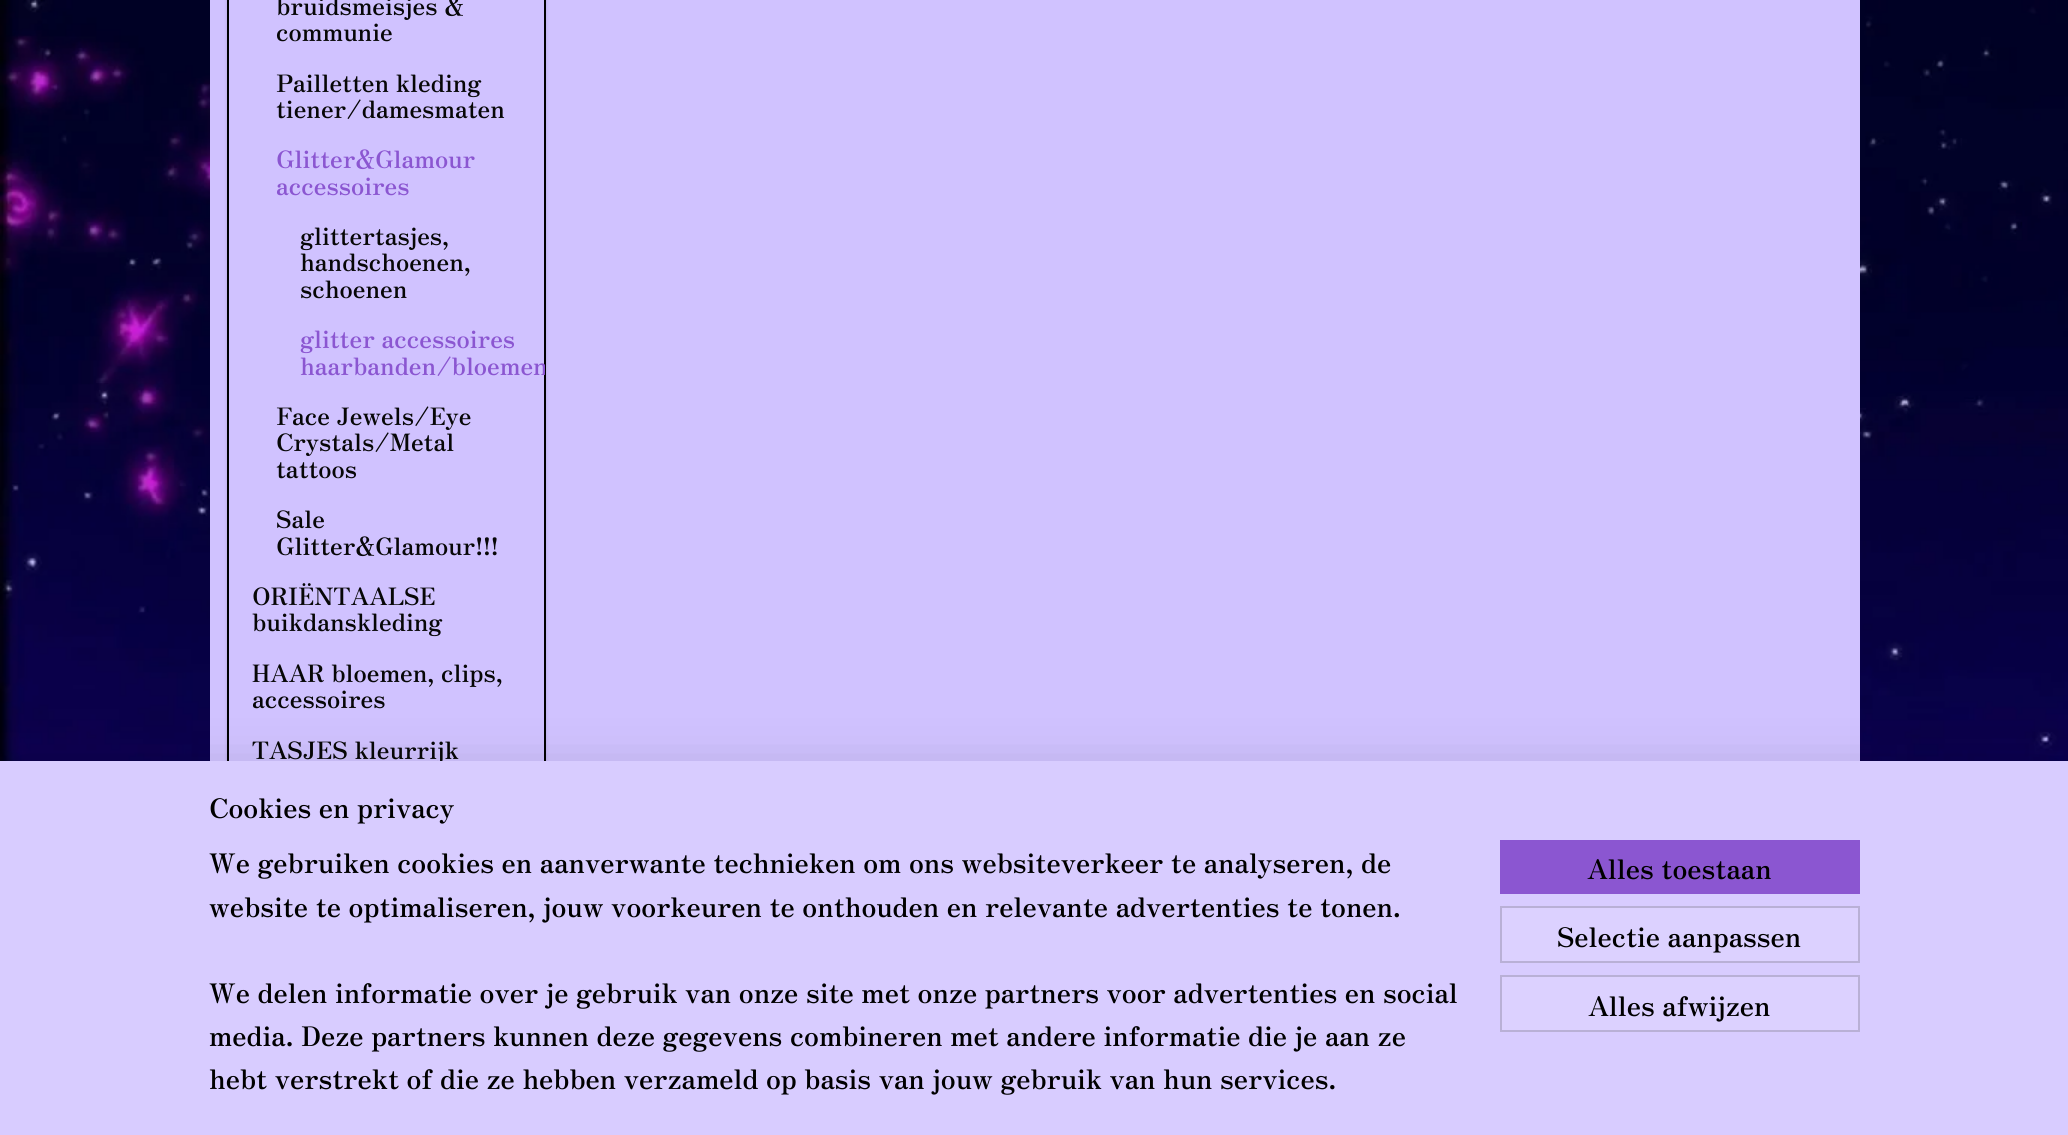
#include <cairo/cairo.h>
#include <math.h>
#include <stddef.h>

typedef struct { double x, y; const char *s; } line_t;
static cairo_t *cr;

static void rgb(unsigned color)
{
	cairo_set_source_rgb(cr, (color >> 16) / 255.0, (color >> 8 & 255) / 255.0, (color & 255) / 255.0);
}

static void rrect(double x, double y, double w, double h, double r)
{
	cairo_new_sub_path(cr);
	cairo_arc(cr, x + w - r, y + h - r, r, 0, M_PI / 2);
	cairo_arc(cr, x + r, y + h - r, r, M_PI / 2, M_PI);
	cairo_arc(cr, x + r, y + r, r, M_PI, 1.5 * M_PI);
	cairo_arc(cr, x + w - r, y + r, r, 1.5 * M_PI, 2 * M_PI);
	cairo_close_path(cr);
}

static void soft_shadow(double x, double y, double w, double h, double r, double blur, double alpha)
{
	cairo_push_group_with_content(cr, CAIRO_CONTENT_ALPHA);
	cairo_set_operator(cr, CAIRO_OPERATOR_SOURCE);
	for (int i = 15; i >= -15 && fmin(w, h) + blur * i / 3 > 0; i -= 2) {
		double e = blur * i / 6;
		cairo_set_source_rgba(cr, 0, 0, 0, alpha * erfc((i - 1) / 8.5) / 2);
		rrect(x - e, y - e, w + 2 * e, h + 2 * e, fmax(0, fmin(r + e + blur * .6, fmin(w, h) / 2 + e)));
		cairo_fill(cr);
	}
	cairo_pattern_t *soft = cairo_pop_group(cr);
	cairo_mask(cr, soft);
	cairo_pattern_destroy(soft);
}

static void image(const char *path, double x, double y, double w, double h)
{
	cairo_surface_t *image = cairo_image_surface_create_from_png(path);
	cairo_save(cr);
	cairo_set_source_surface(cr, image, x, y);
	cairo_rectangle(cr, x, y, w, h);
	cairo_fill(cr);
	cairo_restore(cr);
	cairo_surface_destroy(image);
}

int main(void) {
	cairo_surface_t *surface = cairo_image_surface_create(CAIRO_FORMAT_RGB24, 2068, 1135);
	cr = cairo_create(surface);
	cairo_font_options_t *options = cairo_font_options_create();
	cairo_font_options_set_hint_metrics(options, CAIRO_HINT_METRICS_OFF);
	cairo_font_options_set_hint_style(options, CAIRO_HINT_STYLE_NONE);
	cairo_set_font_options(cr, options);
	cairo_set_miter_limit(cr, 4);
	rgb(0xffffff);
	cairo_paint(cr);
	image("img/1.png", 0, 0, 2068, 761);
	rgb(0xd0c2ff);
	cairo_rectangle(cr, 210, 0, 1650, 761);
	cairo_fill(cr);
	cairo_save(cr);
	cairo_set_fill_rule(cr, CAIRO_FILL_RULE_EVEN_ODD);
	cairo_new_path(cr);
	cairo_move_to(cr, 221, 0);
	cairo_line_to(cr, 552, 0);
	cairo_line_to(cr, 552, 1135);
	cairo_line_to(cr, 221, 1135);
	cairo_close_path(cr);
	cairo_move_to(cr, 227, -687);
	cairo_line_to(cr, 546, -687);
	cairo_line_to(cr, 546, 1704);
	cairo_line_to(cr, 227, 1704);
	cairo_close_path(cr);
	cairo_clip(cr);
	rgb(0x000000);
	soft_shadow(227, -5, 319, 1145, 0, 1.5, 0.15);
	cairo_restore(cr);
	cairo_rectangle(cr, 228, -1, 317, 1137);
	rgb(0x000000);
	cairo_stroke(cr);
	rgb(0x000000);
	soft_shadow(15, 776, 2039, 345, 0, 27, 0.2);
	cairo_select_font_face(cr, "Zen Antique", CAIRO_FONT_SLANT_NORMAL, CAIRO_FONT_WEIGHT_NORMAL);
	cairo_set_font_size(cr, 24);
	rgb(0x070707);
	{
		static const line_t items[] = {
			{276, 15, "bruidsmeisjes &"},
			{276, 41, "communie"},
			{276, 92, "Pailletten kleding"},
			{276, 118, "tiener/damesmaten"},
		};
		for (size_t i = 0; i < sizeof items / sizeof *items; i++) {
			cairo_move_to(cr, items[i].x, items[i].y);
			cairo_show_text(cr, items[i].s);
		}
	}
	rgb(0x8b56d1);
	cairo_move_to(cr, 276, 168);
	cairo_show_text(cr, "Glitter&Glamour");
	cairo_move_to(cr, 276, 195);
	cairo_show_text(cr, "accessoires");
	rgb(0x070707);
	{
		static const line_t items[] = {
			{300, 245, "glittertasjes,"},
			{300, 271, "handschoenen,"},
			{300, 298, "schoenen"},
		};
		for (size_t i = 0; i < sizeof items / sizeof *items; i++) {
			cairo_move_to(cr, items[i].x, items[i].y);
			cairo_show_text(cr, items[i].s);
		}
	}
	rgb(0x8b56d1);
	cairo_move_to(cr, 300, 348);
	cairo_show_text(cr, "glitter accessoires");
	cairo_save(cr);
	cairo_rectangle(cr, 228, 0, 317, 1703);
	cairo_clip(cr);
	cairo_move_to(cr, 300, 375);
	cairo_show_text(cr, "haarbanden/bloemen");
	cairo_restore(cr);
	rgb(0x070707);
	{
		static const line_t items[] = {
			{276, 425, "Face Jewels/Eye"},
			{276, 451, "Crystals/Metal"},
			{276, 478, "tattoos"},
			{276, 528, "Sale"},
			{276, 555, "Glitter&Glamour!!!"},
			{252, 605, "ORIËNTAALSE"},
			{252, 631, "buikdanskleding"},
			{252, 682, "HAAR bloemen, clips,"},
			{252, 708, "accessoires"},
			{252, 759, "TASJES kleurrijk"},
		};
		for (size_t i = 0; i < sizeof items / sizeof *items; i++) {
			cairo_move_to(cr, items[i].x, items[i].y);
			cairo_show_text(cr, items[i].s);
		}
	}
	rgb(0xd8ccff);
	cairo_rectangle(cr, 0, 761, 2068, 374);
	cairo_fill(cr);
	cairo_set_font_size(cr, 27);
	rgb(0x000000);
	{
		static const line_t items[] = {
			{209, 818, "Cookies en privacy"},
			{209, 873, "We gebruiken cookies en aanverwante technieken om ons websiteverkeer te analyseren, de"},
			{209, 917, "website te optimaliseren, jouw voorkeuren te onthouden en relevante advertenties te tonen."},
			{209, 1003, "We delen informatie over je gebruik van onze site met onze partners voor advertenties en social"},
			{209, 1046, "media. Deze partners kunnen deze gegevens combineren met andere informatie die je aan ze"},
			{209, 1089, "hebt verstrekt of die ze hebben verzameld op basis van jouw gebruik van hun services."},
		};
		for (size_t i = 0; i < sizeof items / sizeof *items; i++) {
			cairo_move_to(cr, items[i].x, items[i].y);
			cairo_show_text(cr, items[i].s);
		}
	}
	rgb(0x8b56d1);
	cairo_rectangle(cr, 1500, 840, 360, 54);
	cairo_fill(cr);
	rgb(0x000000);
	cairo_move_to(cr, 1587, 879);
	cairo_show_text(cr, "Alles toestaan");
	rgb(0xdcd1ff);
	cairo_rectangle(cr, 1501, 907, 358, 55);
	cairo_fill_preserve(cr);
	rgb(0xb9b0d6);
	cairo_stroke(cr);
	rgb(0x000000);
	cairo_move_to(cr, 1557, 947);
	cairo_show_text(cr, "Selectie aanpassen");
	rgb(0xdcd1ff);
	cairo_rectangle(cr, 1501, 976, 358, 55);
	cairo_fill_preserve(cr);
	rgb(0xb9b0d6);
	cairo_stroke(cr);
	rgb(0x000000);
	cairo_move_to(cr, 1588, 1016);
	cairo_show_text(cr, "Alles afwijzen");
	cairo_surface_write_to_png(surface, "page.png");
	cairo_font_options_destroy(options);
	cairo_destroy(cr);
	cairo_surface_destroy(surface);
	return 0;
}
